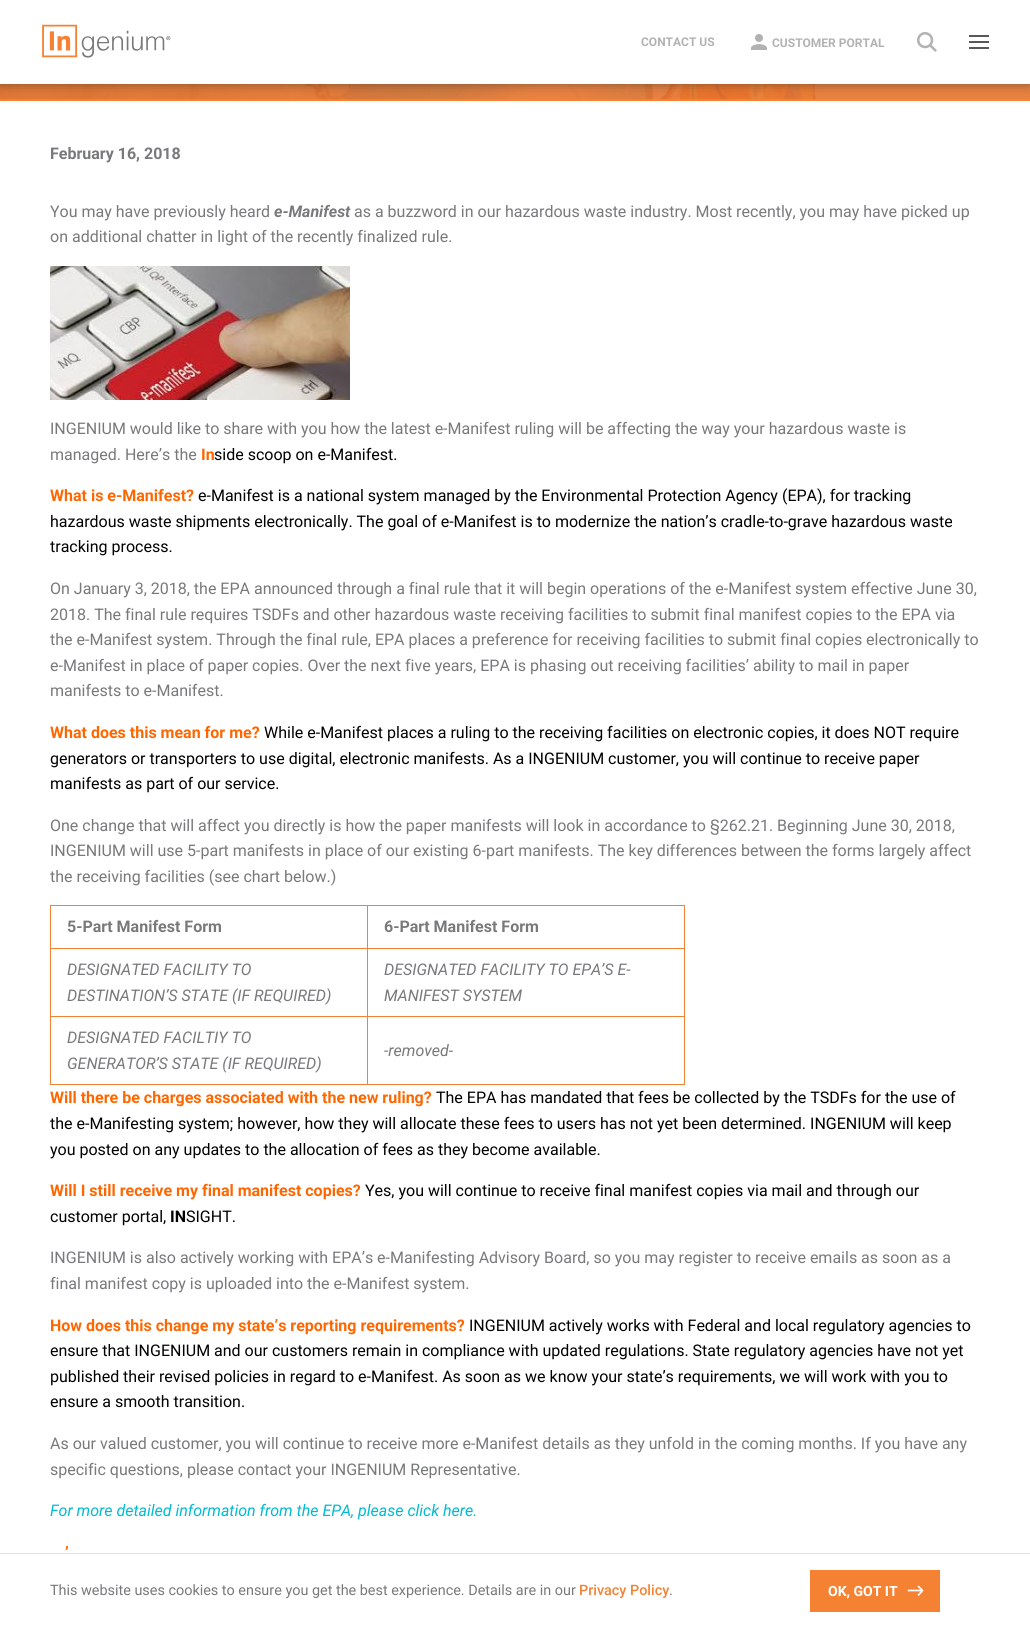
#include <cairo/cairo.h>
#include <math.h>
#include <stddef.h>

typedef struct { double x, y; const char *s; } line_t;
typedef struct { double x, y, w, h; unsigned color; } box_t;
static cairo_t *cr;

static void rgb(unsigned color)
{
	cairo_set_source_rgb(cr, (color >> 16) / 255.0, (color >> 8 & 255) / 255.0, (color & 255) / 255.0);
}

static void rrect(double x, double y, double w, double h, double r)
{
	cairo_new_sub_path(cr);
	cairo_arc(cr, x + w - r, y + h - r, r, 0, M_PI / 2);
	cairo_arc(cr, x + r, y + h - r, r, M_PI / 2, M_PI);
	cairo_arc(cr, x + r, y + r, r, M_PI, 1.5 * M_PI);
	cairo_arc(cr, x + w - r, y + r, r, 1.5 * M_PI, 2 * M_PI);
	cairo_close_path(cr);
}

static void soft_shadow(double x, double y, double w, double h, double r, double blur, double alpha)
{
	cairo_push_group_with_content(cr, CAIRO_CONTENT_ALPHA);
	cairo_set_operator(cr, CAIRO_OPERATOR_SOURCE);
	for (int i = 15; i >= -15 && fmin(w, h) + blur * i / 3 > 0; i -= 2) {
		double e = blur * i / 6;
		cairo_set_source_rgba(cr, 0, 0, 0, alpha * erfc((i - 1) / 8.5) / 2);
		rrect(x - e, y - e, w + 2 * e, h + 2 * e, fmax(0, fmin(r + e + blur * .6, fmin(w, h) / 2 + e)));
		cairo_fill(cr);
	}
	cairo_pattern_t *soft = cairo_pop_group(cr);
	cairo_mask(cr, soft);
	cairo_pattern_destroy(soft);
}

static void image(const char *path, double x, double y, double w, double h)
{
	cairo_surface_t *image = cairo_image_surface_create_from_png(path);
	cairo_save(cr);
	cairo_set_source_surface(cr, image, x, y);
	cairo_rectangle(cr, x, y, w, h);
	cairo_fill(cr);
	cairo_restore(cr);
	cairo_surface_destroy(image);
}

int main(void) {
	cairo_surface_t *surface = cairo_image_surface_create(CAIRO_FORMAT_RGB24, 1030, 1628);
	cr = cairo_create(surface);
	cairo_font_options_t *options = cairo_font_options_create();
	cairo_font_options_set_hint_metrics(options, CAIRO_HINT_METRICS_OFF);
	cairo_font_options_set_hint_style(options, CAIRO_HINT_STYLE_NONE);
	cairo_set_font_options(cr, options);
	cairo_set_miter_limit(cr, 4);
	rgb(0xffffff);
	cairo_paint(cr);
	rgb(0xf58233);
	cairo_rectangle(cr, 0, 100, 1030, 1);
	cairo_fill(cr);
	image("img/4.png", 0, 84, 1030, 16);
	rgb(0x222222);
	soft_shadow(0, 0, 1030, 84, 0, 6, 0.5);
	rgb(0xffffff);
	cairo_rectangle(cr, 0, 0, 1030, 84);
	cairo_fill(cr);
	image("img/1.png", 42, 24, 129, 34);
	image("img/2.png", 751, 34, 16, 16);
	image("img/3.png", 917, 32, 20, 20);
	{
		static const box_t items[] = {
			{969, 35, 20, 2, 0x585858},
			{969, 41, 20, 2, 0x585858},
			{969, 47, 20, 2, 0x585858},
		};
		for (size_t i = 0; i < sizeof items / sizeof *items; i++) {
			rgb(items[i].color);
			cairo_rectangle(cr, items[i].x, items[i].y, items[i].w, items[i].h);
			cairo_fill(cr);
		}
	}
	image("img/5.png", 50, 266, 300, 134);
	{
		static const box_t items[] = {
			{367, 905, 318, 1, 0xf58233},
			{367, 948, 318, 1, 0xf58233},
			{367, 1016, 318, 1, 0xf58233},
			{684, 1016, 1, 69, 0xf58233},
			{367, 1084, 318, 1, 0xf58233},
			{367, 1016, 1, 69, 0xf58233},
			{50, 1016, 318, 1, 0xf58233},
			{367, 948, 1, 69, 0xf58233},
			{50, 948, 318, 1, 0xf58233},
			{367, 905, 1, 44, 0xf58233},
			{50, 905, 318, 1, 0xf58233},
			{50, 1084, 318, 1, 0xf58233},
			{50, 1016, 1, 69, 0xf58233},
			{50, 948, 1, 69, 0xf58233},
			{50, 905, 1, 44, 0xf58233},
			{684, 948, 1, 69, 0xf58233},
			{684, 905, 1, 44, 0xf58233},
			{0, 1553, 1030, 1, 0xe1e1e1},
			{810, 1570, 130, 42, 0xf58233},
		};
		for (size_t i = 0; i < sizeof items / sizeof *items; i++) {
			rgb(items[i].color);
			cairo_rectangle(cr, items[i].x, items[i].y, items[i].w, items[i].h);
			cairo_fill(cr);
		}
	}
	cairo_new_path(cr);
	cairo_move_to(cr, 908.5, 1590.5);
	cairo_line_to(cr, 922.5, 1590.5);
	cairo_move_to(cr, 918.5, 1586.5);
	cairo_line_to(cr, 922.5, 1590.5);
	cairo_line_to(cr, 918.5, 1595);
	rgb(0xffffff);
	cairo_set_line_width(cr, 1.7);
	cairo_set_line_cap(cr, CAIRO_LINE_CAP_ROUND);
	cairo_set_line_join(cr, CAIRO_LINE_JOIN_ROUND);
	cairo_stroke(cr);
	cairo_select_font_face(cr, "Roboto", CAIRO_FONT_SLANT_NORMAL, CAIRO_FONT_WEIGHT_BOLD);
	cairo_set_font_size(cr, 12);
	rgb(0xb2b2b2);
	cairo_move_to(cr, 641, 46);
	cairo_show_text(cr, "CONTACT US");
	cairo_move_to(cr, 772, 47);
	cairo_show_text(cr, "CUSTOMER PORTAL");
	cairo_set_font_size(cr, 16);
	rgb(0x78797b);
	cairo_move_to(cr, 50, 159);
	cairo_show_text(cr, "February 16, 2018");
	cairo_select_font_face(cr, "Roboto", CAIRO_FONT_SLANT_NORMAL, CAIRO_FONT_WEIGHT_NORMAL);
	cairo_move_to(cr, 50, 217);
	cairo_show_text(cr, "You may have previously heard");
	cairo_select_font_face(cr, "Roboto", CAIRO_FONT_SLANT_ITALIC, CAIRO_FONT_WEIGHT_BOLD);
	cairo_move_to(cr, 274, 217);
	cairo_show_text(cr, "e-Manifest");
	cairo_select_font_face(cr, "Roboto", CAIRO_FONT_SLANT_NORMAL, CAIRO_FONT_WEIGHT_NORMAL);
	{
		static const line_t items[] = {
			{354, 217, "as a buzzword in our hazardous waste industry. Most recently, you may have picked up"},
			{50, 242, "on additional chatter in light of the recently finalized rule."},
			{50, 434, "INGENIUM would like to share with you how the latest e-Manifest ruling will be affecting the way your hazardous waste is"},
			{50, 460, "managed. Here’s the"},
		};
		for (size_t i = 0; i < sizeof items / sizeof *items; i++) {
			cairo_move_to(cr, items[i].x, items[i].y);
			cairo_show_text(cr, items[i].s);
		}
	}
	cairo_select_font_face(cr, "Roboto", CAIRO_FONT_SLANT_NORMAL, CAIRO_FONT_WEIGHT_BOLD);
	rgb(0xff6600);
	cairo_move_to(cr, 201, 460);
	cairo_show_text(cr, "In");
	cairo_select_font_face(cr, "Roboto", CAIRO_FONT_SLANT_NORMAL, CAIRO_FONT_WEIGHT_NORMAL);
	rgb(0x000000);
	cairo_move_to(cr, 214, 460);
	cairo_show_text(cr, "side scoop on e-Manifest.");
	cairo_select_font_face(cr, "Roboto", CAIRO_FONT_SLANT_NORMAL, CAIRO_FONT_WEIGHT_BOLD);
	rgb(0xff6600);
	cairo_move_to(cr, 50, 501);
	cairo_show_text(cr, "What is e-Manifest?");
	cairo_select_font_face(cr, "Roboto", CAIRO_FONT_SLANT_NORMAL, CAIRO_FONT_WEIGHT_NORMAL);
	rgb(0x000000);
	{
		static const line_t items[] = {
			{198, 501, "e-Manifest is a national system managed by the Environmental Protection Agency (EPA), for tracking"},
			{50, 527, "hazardous waste shipments electronically. The goal of e-Manifest is to modernize the nation’s cradle-to-grave hazardous waste"},
			{50, 552, "tracking process."},
		};
		for (size_t i = 0; i < sizeof items / sizeof *items; i++) {
			cairo_move_to(cr, items[i].x, items[i].y);
			cairo_show_text(cr, items[i].s);
		}
	}
	rgb(0x78797b);
	{
		static const line_t items[] = {
			{50, 594, "On January 3, 2018, the EPA announced through a final rule that it will begin operations of the e-Manifest system effective June 30,"},
			{50, 620, "2018. The final rule requires TSDFs and other hazardous waste receiving facilities to submit final manifest copies to the EPA via"},
			{50, 645, "the e-Manifest system. Through the final rule, EPA places a preference for receiving facilities to submit final copies electronically to"},
			{50, 671, "e-Manifest in place of paper copies. Over the next five years, EPA is phasing out receiving facilities’ ability to mail in paper"},
			{50, 696, "manifests to e-Manifest."},
		};
		for (size_t i = 0; i < sizeof items / sizeof *items; i++) {
			cairo_move_to(cr, items[i].x, items[i].y);
			cairo_show_text(cr, items[i].s);
		}
	}
	cairo_select_font_face(cr, "Roboto", CAIRO_FONT_SLANT_NORMAL, CAIRO_FONT_WEIGHT_BOLD);
	rgb(0xff6600);
	cairo_move_to(cr, 50, 738);
	cairo_show_text(cr, "What does this mean for me?");
	cairo_select_font_face(cr, "Roboto", CAIRO_FONT_SLANT_NORMAL, CAIRO_FONT_WEIGHT_NORMAL);
	rgb(0x000000);
	{
		static const line_t items[] = {
			{264, 738, "While e-Manifest places a ruling to the receiving facilities on electronic copies, it does NOT require"},
			{50, 764, "generators or transporters to use digital, electronic manifests. As a INGENIUM customer, you will continue to receive paper"},
			{50, 789, "manifests as part of our service."},
		};
		for (size_t i = 0; i < sizeof items / sizeof *items; i++) {
			cairo_move_to(cr, items[i].x, items[i].y);
			cairo_show_text(cr, items[i].s);
		}
	}
	rgb(0x78797b);
	{
		static const line_t items[] = {
			{50, 831, "One change that will affect you directly is how the paper manifests will look in accordance to §262.21. Beginning June 30, 2018,"},
			{50, 856, "INGENIUM will use 5-part manifests in place of our existing 6-part manifests. The key differences between the forms largely affect"},
			{50, 882, "the receiving facilities (see chart below.)"},
		};
		for (size_t i = 0; i < sizeof items / sizeof *items; i++) {
			cairo_move_to(cr, items[i].x, items[i].y);
			cairo_show_text(cr, items[i].s);
		}
	}
	cairo_select_font_face(cr, "Roboto", CAIRO_FONT_SLANT_NORMAL, CAIRO_FONT_WEIGHT_BOLD);
	cairo_move_to(cr, 67, 932);
	cairo_show_text(cr, "5-Part Manifest Form");
	cairo_move_to(cr, 384, 932);
	cairo_show_text(cr, "6-Part Manifest Form");
	cairo_select_font_face(cr, "Roboto", CAIRO_FONT_SLANT_ITALIC, CAIRO_FONT_WEIGHT_NORMAL);
	{
		static const line_t items[] = {
			{67, 975, "DESIGNATED FACILITY TO"},
			{67, 1001, "DESTINATION’S STATE (IF REQUIRED)"},
			{384, 975, "DESIGNATED FACILITY TO EPA’S E-"},
			{384, 1001, "MANIFEST SYSTEM"},
			{67, 1043, "DESIGNATED FACILTIY TO"},
			{67, 1069, "GENERATOR’S STATE (IF REQUIRED)"},
			{384, 1056, "-removed-"},
		};
		for (size_t i = 0; i < sizeof items / sizeof *items; i++) {
			cairo_move_to(cr, items[i].x, items[i].y);
			cairo_show_text(cr, items[i].s);
		}
	}
	cairo_select_font_face(cr, "Roboto", CAIRO_FONT_SLANT_NORMAL, CAIRO_FONT_WEIGHT_BOLD);
	rgb(0xff6600);
	cairo_move_to(cr, 50, 1103);
	cairo_show_text(cr, "Will there be charges associated with the new ruling?");
	cairo_select_font_face(cr, "Roboto", CAIRO_FONT_SLANT_NORMAL, CAIRO_FONT_WEIGHT_NORMAL);
	rgb(0x000000);
	{
		static const line_t items[] = {
			{436, 1103, "The EPA has mandated that fees be collected by the TSDFs for the use of"},
			{50, 1129, "the e-Manifesting system; however, how they will allocate these fees to users has not yet been determined. INGENIUM will keep"},
			{50, 1155, "you posted on any updates to the allocation of fees as they become available."},
		};
		for (size_t i = 0; i < sizeof items / sizeof *items; i++) {
			cairo_move_to(cr, items[i].x, items[i].y);
			cairo_show_text(cr, items[i].s);
		}
	}
	cairo_select_font_face(cr, "Roboto", CAIRO_FONT_SLANT_NORMAL, CAIRO_FONT_WEIGHT_BOLD);
	rgb(0xff6600);
	cairo_move_to(cr, 50, 1196);
	cairo_show_text(cr, "Will I still receive my final manifest copies?");
	cairo_select_font_face(cr, "Roboto", CAIRO_FONT_SLANT_NORMAL, CAIRO_FONT_WEIGHT_NORMAL);
	rgb(0x000000);
	cairo_move_to(cr, 365, 1196);
	cairo_show_text(cr, "Yes, you will continue to receive final manifest copies via mail and through our");
	cairo_move_to(cr, 50, 1222);
	cairo_show_text(cr, "customer portal,");
	cairo_select_font_face(cr, "Roboto", CAIRO_FONT_SLANT_NORMAL, CAIRO_FONT_WEIGHT_BOLD);
	cairo_move_to(cr, 170, 1222);
	cairo_show_text(cr, "IN");
	cairo_select_font_face(cr, "Roboto", CAIRO_FONT_SLANT_NORMAL, CAIRO_FONT_WEIGHT_NORMAL);
	cairo_move_to(cr, 186, 1222);
	cairo_show_text(cr, "SIGHT.");
	rgb(0x78797b);
	cairo_move_to(cr, 50, 1263);
	cairo_show_text(cr, "INGENIUM is also actively working with EPA’s e-Manifesting Advisory Board, so you may register to receive emails as soon as a");
	cairo_move_to(cr, 50, 1289);
	cairo_show_text(cr, "final manifest copy is uploaded into the e-Manifest system.");
	cairo_select_font_face(cr, "Roboto", CAIRO_FONT_SLANT_NORMAL, CAIRO_FONT_WEIGHT_BOLD);
	rgb(0xff6600);
	cairo_move_to(cr, 50, 1331);
	cairo_show_text(cr, "How does this change my state’s reporting requirements?");
	cairo_select_font_face(cr, "Roboto", CAIRO_FONT_SLANT_NORMAL, CAIRO_FONT_WEIGHT_NORMAL);
	rgb(0x000000);
	{
		static const line_t items[] = {
			{469, 1331, "INGENIUM actively works with Federal and local regulatory agencies to"},
			{50, 1356, "ensure that INGENIUM and our customers remain in compliance with updated regulations. State regulatory agencies have not yet"},
			{50, 1382, "published their revised policies in regard to e-Manifest. As soon as we know your state’s requirements, we will work with you to"},
			{50, 1407, "ensure a smooth transition."},
		};
		for (size_t i = 0; i < sizeof items / sizeof *items; i++) {
			cairo_move_to(cr, items[i].x, items[i].y);
			cairo_show_text(cr, items[i].s);
		}
	}
	rgb(0x78797b);
	cairo_move_to(cr, 50, 1449);
	cairo_show_text(cr, "As our valued customer, you will continue to receive more e-Manifest details as they unfold in the coming months. If you have any");
	cairo_move_to(cr, 50, 1475);
	cairo_show_text(cr, "specific questions, please contact your INGENIUM Representative.");
	cairo_select_font_face(cr, "Roboto", CAIRO_FONT_SLANT_ITALIC, CAIRO_FONT_WEIGHT_NORMAL);
	rgb(0x00bbd3);
	cairo_move_to(cr, 50, 1516);
	cairo_show_text(cr, "For more detailed information from the EPA, please click here.");
	cairo_select_font_face(cr, "Roboto", CAIRO_FONT_SLANT_NORMAL, CAIRO_FONT_WEIGHT_BOLD);
	rgb(0xff6600);
	cairo_move_to(cr, 65, 1558);
	cairo_show_text(cr, "’");
	cairo_select_font_face(cr, "Roboto", CAIRO_FONT_SLANT_NORMAL, CAIRO_FONT_WEIGHT_NORMAL);
	cairo_set_font_size(cr, 14.4);
	rgb(0x78797b);
	cairo_move_to(cr, 50, 1595);
	cairo_show_text(cr, "This website uses cookies to ensure you get the best experience. Details are in our");
	cairo_select_font_face(cr, "Roboto Medium", CAIRO_FONT_SLANT_NORMAL, CAIRO_FONT_WEIGHT_NORMAL);
	rgb(0xf58233);
	cairo_move_to(cr, 579, 1595);
	cairo_show_text(cr, "Privacy Policy");
	cairo_select_font_face(cr, "Roboto", CAIRO_FONT_SLANT_NORMAL, CAIRO_FONT_WEIGHT_NORMAL);
	rgb(0x78797b);
	cairo_move_to(cr, 669, 1595);
	cairo_show_text(cr, ".");
	cairo_select_font_face(cr, "Roboto", CAIRO_FONT_SLANT_NORMAL, CAIRO_FONT_WEIGHT_BOLD);
	cairo_set_font_size(cr, 14);
	rgb(0xffffff);
	cairo_move_to(cr, 828, 1596);
	cairo_show_text(cr, "OK, GOT IT");
	cairo_surface_write_to_png(surface, "page.png");
	cairo_font_options_destroy(options);
	cairo_destroy(cr);
	cairo_surface_destroy(surface);
	return 0;
}
